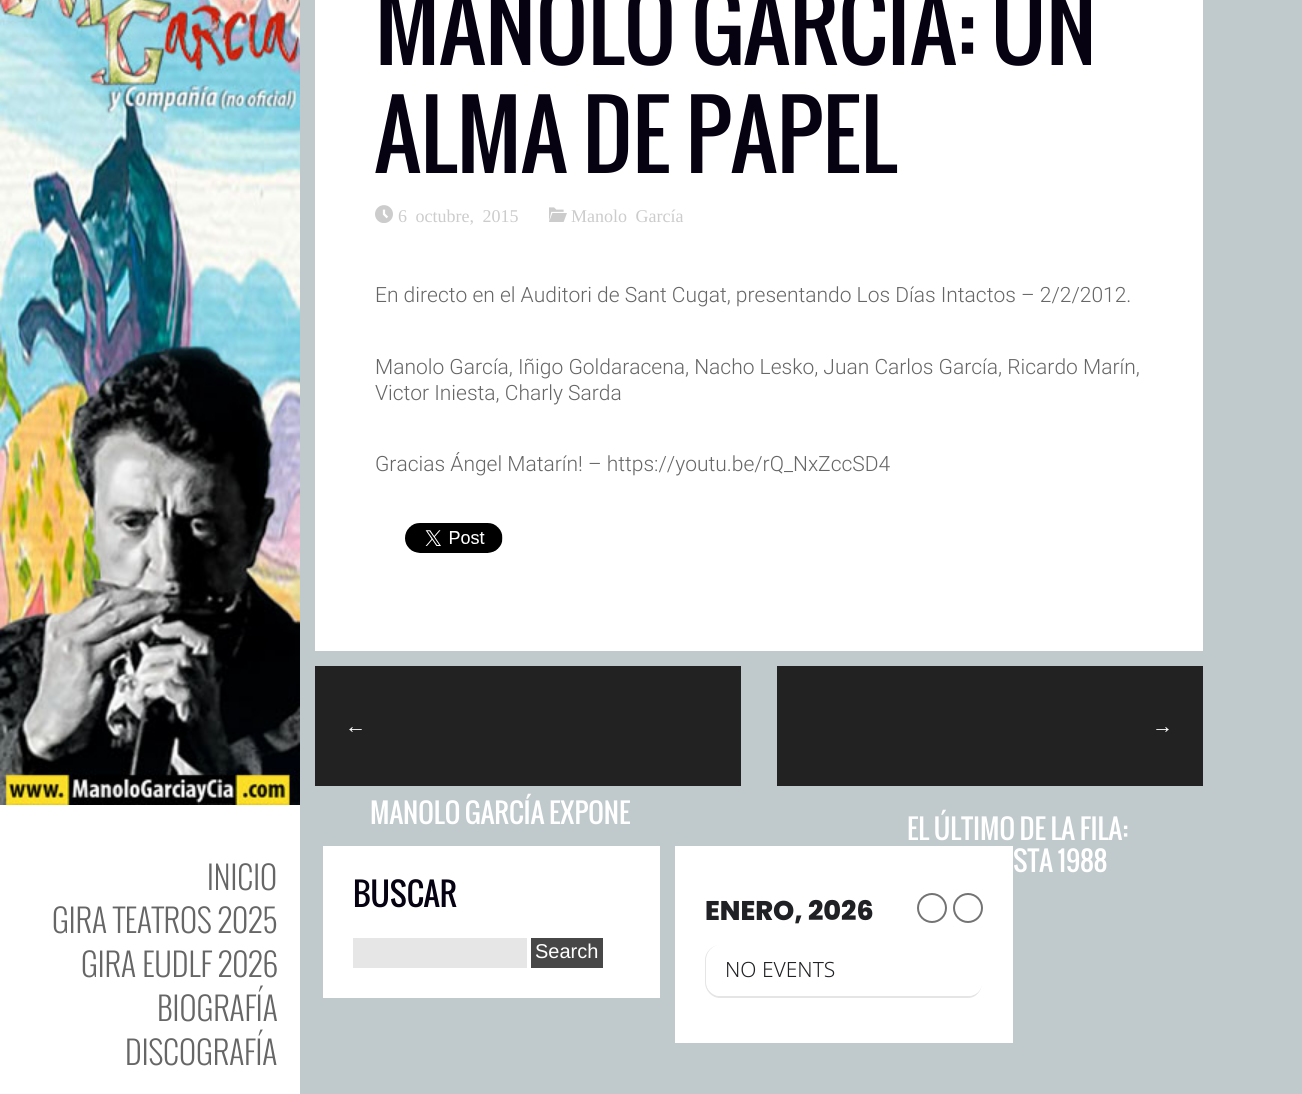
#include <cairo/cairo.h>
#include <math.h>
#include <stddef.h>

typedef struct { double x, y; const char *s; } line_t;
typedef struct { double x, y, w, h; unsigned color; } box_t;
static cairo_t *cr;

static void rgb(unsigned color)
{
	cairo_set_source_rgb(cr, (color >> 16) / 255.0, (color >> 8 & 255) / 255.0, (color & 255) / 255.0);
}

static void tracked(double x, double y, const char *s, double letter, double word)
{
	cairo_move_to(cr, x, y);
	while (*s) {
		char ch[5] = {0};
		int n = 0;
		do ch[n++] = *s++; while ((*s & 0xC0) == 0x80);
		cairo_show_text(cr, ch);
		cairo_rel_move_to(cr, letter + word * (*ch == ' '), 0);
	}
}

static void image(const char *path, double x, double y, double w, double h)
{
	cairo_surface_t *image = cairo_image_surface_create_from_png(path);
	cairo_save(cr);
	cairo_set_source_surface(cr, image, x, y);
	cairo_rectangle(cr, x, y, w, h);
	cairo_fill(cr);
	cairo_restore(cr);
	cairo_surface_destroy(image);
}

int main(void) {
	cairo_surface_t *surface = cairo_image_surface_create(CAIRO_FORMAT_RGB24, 1302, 1094);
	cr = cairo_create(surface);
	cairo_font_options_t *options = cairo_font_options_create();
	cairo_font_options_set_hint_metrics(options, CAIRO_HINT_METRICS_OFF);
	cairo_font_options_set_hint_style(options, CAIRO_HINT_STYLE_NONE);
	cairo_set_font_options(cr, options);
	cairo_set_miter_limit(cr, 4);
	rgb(0xc0c9cc);
	cairo_paint(cr);
	rgb(0xffffff);
	cairo_rectangle(cr, 315, 0, 888, 651);
	cairo_fill(cr);
	image("img/1.png", 375, 205, 18, 18);
	image("img/2.png", 549, 207, 18, 15);
	image("img/3.png", 405, 523, 98, 30);
	{
		static const box_t items[] = {
			{315, 666, 426, 120, 0x222222},
			{777, 666, 426, 120, 0x222222},
			{0, 805, 300, 289, 0xffffff},
		};
		for (size_t i = 0; i < sizeof items / sizeof *items; i++) {
			rgb(items[i].color);
			cairo_rectangle(cr, items[i].x, items[i].y, items[i].w, items[i].h);
			cairo_fill(cr);
		}
	}
	image("img/4.png", 0, 0, 300, 805);
	{
		static const box_t items[] = {
			{323, 846, 337, 152, 0xffffff},
			{353, 938, 174, 30, 0xe6e6e6},
			{531, 938, 72, 30, 0x474747},
			{675, 846, 338, 197, 0xffffff},
		};
		for (size_t i = 0; i < sizeof items / sizeof *items; i++) {
			rgb(items[i].color);
			cairo_rectangle(cr, items[i].x, items[i].y, items[i].w, items[i].h);
			cairo_fill(cr);
		}
	}
	cairo_arc(cr, 932, 908, 14, 0, 2 * M_PI);
	rgb(0x737373);
	cairo_stroke(cr);
	cairo_arc(cr, 968, 908, 14, 0, 2 * M_PI);
	cairo_stroke(cr);
	rgb(0xe5e5e5);
	cairo_set_fill_rule(cr, CAIRO_FILL_RULE_EVEN_ODD);
	cairo_new_path(cr);
	cairo_move_to(cr, 720, 945);
	cairo_line_to(cr, 968, 945);
	cairo_curve_to(cr, 976, 945, 982, 952, 982, 960);
	cairo_line_to(cr, 982, 982);
	cairo_curve_to(cr, 982, 991, 976, 998, 968, 998);
	cairo_line_to(cr, 720, 998);
	cairo_curve_to(cr, 712, 998, 705, 991, 705, 982);
	cairo_line_to(cr, 705, 960);
	cairo_curve_to(cr, 705, 952, 712, 945, 720, 945);
	cairo_close_path(cr);
	cairo_move_to(cr, 720, 945);
	cairo_line_to(cr, 968, 945);
	cairo_curve_to(cr, 976, 945, 982, 952, 982, 960);
	cairo_line_to(cr, 982, 982);
	cairo_curve_to(cr, 982, 990, 976, 996, 968, 996);
	cairo_line_to(cr, 720, 996);
	cairo_curve_to(cr, 713, 996, 706, 990, 706, 982);
	cairo_line_to(cr, 706, 960);
	cairo_curve_to(cr, 706, 952, 713, 945, 720, 945);
	cairo_close_path(cr);
	cairo_fill(cr);
	rgb(0xffffff);
	cairo_set_fill_rule(cr, CAIRO_FILL_RULE_WINDING);
	cairo_new_path(cr);
	cairo_move_to(cr, 720, 945);
	cairo_curve_to(cr, 714, 945, 709, 950, 707, 956);
	cairo_line_to(cr, 707, 986);
	cairo_curve_to(cr, 709, 992, 714, 996, 720, 996);
	cairo_line_to(cr, 968, 996);
	cairo_curve_to(cr, 976, 996, 982, 990, 982, 982);
	cairo_line_to(cr, 982, 960);
	cairo_curve_to(cr, 982, 952, 976, 945, 968, 945);
	cairo_close_path(cr);
	cairo_fill(cr);
	cairo_select_font_face(cr, "Oswald", CAIRO_FONT_SLANT_NORMAL, CAIRO_FONT_WEIGHT_NORMAL);
	cairo_set_font_size(cr, 90);
	rgb(0x070211);
	cairo_move_to(cr, 375, 65);
	cairo_show_text(cr, "MANOLO GARCÍA: UN");
	cairo_move_to(cr, 375, 173);
	cairo_show_text(cr, "ALMA DE PAPEL");
	cairo_select_font_face(cr, "Liberation Serif", CAIRO_FONT_SLANT_NORMAL, CAIRO_FONT_WEIGHT_NORMAL);
	cairo_set_font_size(cr, 18);
	rgb(0xcccccc);
	tracked(398, 222, "6 octubre, 2015", 0, 4);
	tracked(571, 222, "Manolo García", 0, 4);
	cairo_select_font_face(cr, "Roboto Light", CAIRO_FONT_SLANT_NORMAL, CAIRO_FONT_WEIGHT_NORMAL);
	cairo_set_font_size(cr, 21);
	rgb(0x666666);
	{
		static const line_t items[] = {
			{375, 302, "En directo en el Auditori de Sant Cugat, presentando Los Días Intactos – 2/2/2012."},
			{375, 374, "Manolo García, Iñigo Goldaracena, Nacho Lesko, Juan Carlos García, Ricardo Marín,"},
			{375, 400, "Victor Iniesta, Charly Sarda"},
			{375, 471, "Gracias Ángel Matarín! – https://youtu.be/rQ_NxZccSD4"},
		};
		for (size_t i = 0; i < sizeof items / sizeof *items; i++) {
			cairo_move_to(cr, items[i].x, items[i].y);
			cairo_show_text(cr, items[i].s);
		}
	}
	cairo_select_font_face(cr, "Liberation Sans", CAIRO_FONT_SLANT_NORMAL, CAIRO_FONT_WEIGHT_NORMAL);
	rgb(0xffffff);
	cairo_move_to(cr, 345, 733);
	cairo_show_text(cr, "←");
	cairo_select_font_face(cr, "Oswald", CAIRO_FONT_SLANT_NORMAL, CAIRO_FONT_WEIGHT_NORMAL);
	cairo_set_font_size(cr, 27);
	cairo_move_to(cr, 370, 824);
	cairo_show_text(cr, "MANOLO GARCÍA EXPONE");
	cairo_select_font_face(cr, "Liberation Sans", CAIRO_FONT_SLANT_NORMAL, CAIRO_FONT_WEIGHT_NORMAL);
	cairo_set_font_size(cr, 21);
	cairo_move_to(cr, 1152, 733);
	cairo_show_text(cr, "→");
	cairo_select_font_face(cr, "Oswald", CAIRO_FONT_SLANT_NORMAL, CAIRO_FONT_WEIGHT_NORMAL);
	cairo_set_font_size(cr, 27);
	cairo_move_to(cr, 907, 840);
	cairo_show_text(cr, "EL ÚLTIMO DE LA FILA:");
	cairo_move_to(cr, 1013, 872);
	cairo_show_text(cr, "STA 1988");
	cairo_select_font_face(cr, "Oswald Light", CAIRO_FONT_SLANT_NORMAL, CAIRO_FONT_WEIGHT_NORMAL);
	cairo_set_font_size(cr, 31.5);
	rgb(0x666666);
	{
		static const line_t items[] = {
			{207, 890, "INICIO"},
			{52, 933, "GIRA TEATROS 2025"},
			{81, 977, "GIRA EUDLF 2026"},
			{157, 1021, "BIOGRAFÍA"},
			{125, 1065, "DISCOGRAFÍA"},
		};
		for (size_t i = 0; i < sizeof items / sizeof *items; i++) {
			cairo_move_to(cr, items[i].x, items[i].y);
			cairo_show_text(cr, items[i].s);
		}
	}
	cairo_select_font_face(cr, "Oswald", CAIRO_FONT_SLANT_NORMAL, CAIRO_FONT_WEIGHT_NORMAL);
	rgb(0x070211);
	cairo_move_to(cr, 353, 907);
	cairo_show_text(cr, "BUSCAR");
	cairo_select_font_face(cr, "Liberation Sans", CAIRO_FONT_SLANT_NORMAL, CAIRO_FONT_WEIGHT_NORMAL);
	cairo_set_font_size(cr, 20);
	rgb(0xffffff);
	cairo_move_to(cr, 535, 958);
	cairo_show_text(cr, "Search");
	cairo_select_font_face(cr, "Poppins ExtraBold", CAIRO_FONT_SLANT_NORMAL, CAIRO_FONT_WEIGHT_NORMAL);
	cairo_set_font_size(cr, 27);
	rgb(0x202124);
	cairo_move_to(cr, 705, 920);
	cairo_show_text(cr, "ENERO, 2026");
	cairo_select_font_face(cr, "Noto Sans Light", CAIRO_FONT_SLANT_NORMAL, CAIRO_FONT_WEIGHT_NORMAL);
	cairo_set_font_size(cr, 21);
	cairo_move_to(cr, 725, 977);
	cairo_show_text(cr, "NO EVENTS");
	cairo_surface_write_to_png(surface, "page.png");
	cairo_font_options_destroy(options);
	cairo_destroy(cr);
	cairo_surface_destroy(surface);
	return 0;
}
